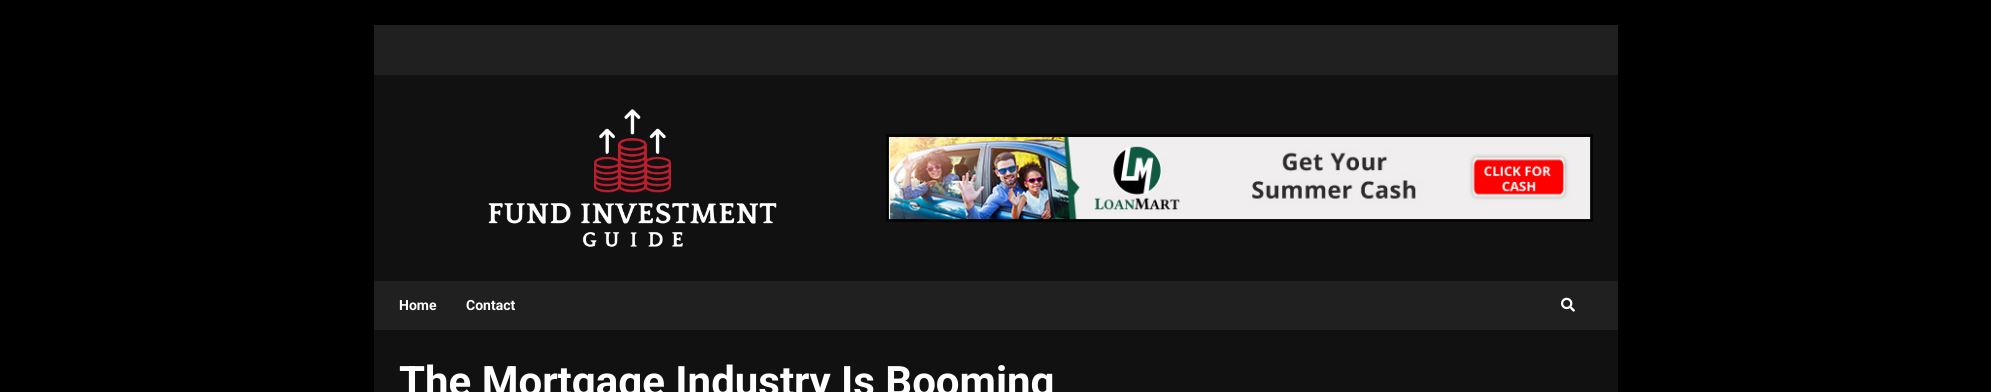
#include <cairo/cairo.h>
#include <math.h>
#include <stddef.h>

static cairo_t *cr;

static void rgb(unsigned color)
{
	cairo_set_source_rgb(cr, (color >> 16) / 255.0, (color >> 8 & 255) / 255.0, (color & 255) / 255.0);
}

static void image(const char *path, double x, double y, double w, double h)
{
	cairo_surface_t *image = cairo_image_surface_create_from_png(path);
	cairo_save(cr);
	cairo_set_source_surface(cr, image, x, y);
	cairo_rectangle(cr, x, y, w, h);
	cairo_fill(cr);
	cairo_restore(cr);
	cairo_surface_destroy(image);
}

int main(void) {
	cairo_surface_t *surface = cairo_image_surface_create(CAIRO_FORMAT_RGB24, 1991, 392);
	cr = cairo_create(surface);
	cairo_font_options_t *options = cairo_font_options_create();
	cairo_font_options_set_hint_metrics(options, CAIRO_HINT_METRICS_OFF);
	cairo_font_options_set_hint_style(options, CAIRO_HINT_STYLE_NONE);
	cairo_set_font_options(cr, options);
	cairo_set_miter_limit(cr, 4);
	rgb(0x000000);
	cairo_paint(cr);
	rgb(0x111111);
	cairo_rectangle(cr, 374, 75, 1244, 317);
	cairo_fill(cr);
	rgb(0x202020);
	cairo_rectangle(cr, 374, 25, 1244, 50);
	cairo_fill(cr);
	image("img/1.png", 488, 109, 289, 138);
	image("img/2.png", 886, 134, 707, 88);
	cairo_rectangle(cr, 374, 281, 1244, 49);
	cairo_fill(cr);
	image("img/3.png", 1561, 297, 14, 15);
	cairo_select_font_face(cr, "Roboto", CAIRO_FONT_SLANT_NORMAL, CAIRO_FONT_WEIGHT_BOLD);
	cairo_set_font_size(cr, 14);
	rgb(0xffffff);
	cairo_move_to(cr, 399, 310);
	cairo_show_text(cr, "Home");
	cairo_move_to(cr, 466, 310);
	cairo_show_text(cr, "Contact");
	cairo_set_font_size(cr, 42);
	cairo_move_to(cr, 399, 396);
	cairo_show_text(cr, "The Mortgage Industry Is Booming");
	cairo_surface_write_to_png(surface, "page.png");
	cairo_font_options_destroy(options);
	cairo_destroy(cr);
	cairo_surface_destroy(surface);
	return 0;
}
